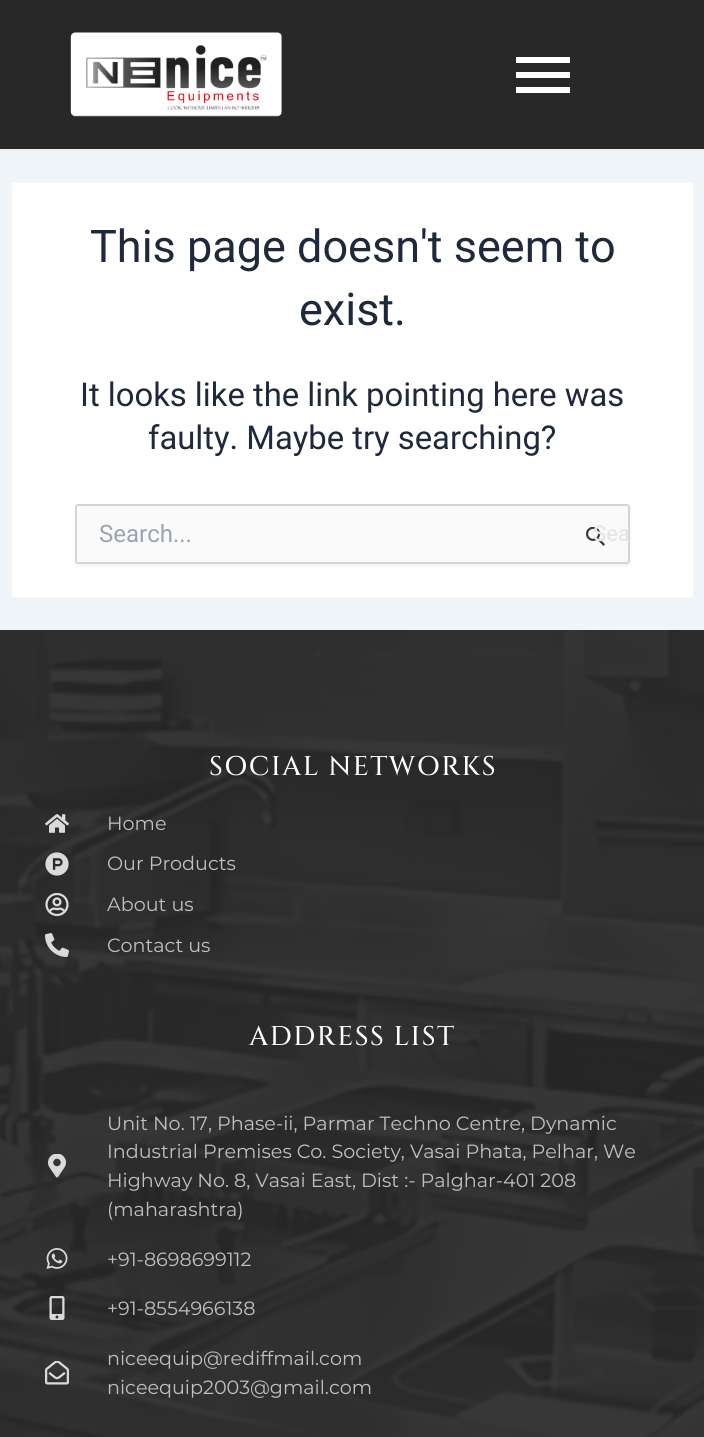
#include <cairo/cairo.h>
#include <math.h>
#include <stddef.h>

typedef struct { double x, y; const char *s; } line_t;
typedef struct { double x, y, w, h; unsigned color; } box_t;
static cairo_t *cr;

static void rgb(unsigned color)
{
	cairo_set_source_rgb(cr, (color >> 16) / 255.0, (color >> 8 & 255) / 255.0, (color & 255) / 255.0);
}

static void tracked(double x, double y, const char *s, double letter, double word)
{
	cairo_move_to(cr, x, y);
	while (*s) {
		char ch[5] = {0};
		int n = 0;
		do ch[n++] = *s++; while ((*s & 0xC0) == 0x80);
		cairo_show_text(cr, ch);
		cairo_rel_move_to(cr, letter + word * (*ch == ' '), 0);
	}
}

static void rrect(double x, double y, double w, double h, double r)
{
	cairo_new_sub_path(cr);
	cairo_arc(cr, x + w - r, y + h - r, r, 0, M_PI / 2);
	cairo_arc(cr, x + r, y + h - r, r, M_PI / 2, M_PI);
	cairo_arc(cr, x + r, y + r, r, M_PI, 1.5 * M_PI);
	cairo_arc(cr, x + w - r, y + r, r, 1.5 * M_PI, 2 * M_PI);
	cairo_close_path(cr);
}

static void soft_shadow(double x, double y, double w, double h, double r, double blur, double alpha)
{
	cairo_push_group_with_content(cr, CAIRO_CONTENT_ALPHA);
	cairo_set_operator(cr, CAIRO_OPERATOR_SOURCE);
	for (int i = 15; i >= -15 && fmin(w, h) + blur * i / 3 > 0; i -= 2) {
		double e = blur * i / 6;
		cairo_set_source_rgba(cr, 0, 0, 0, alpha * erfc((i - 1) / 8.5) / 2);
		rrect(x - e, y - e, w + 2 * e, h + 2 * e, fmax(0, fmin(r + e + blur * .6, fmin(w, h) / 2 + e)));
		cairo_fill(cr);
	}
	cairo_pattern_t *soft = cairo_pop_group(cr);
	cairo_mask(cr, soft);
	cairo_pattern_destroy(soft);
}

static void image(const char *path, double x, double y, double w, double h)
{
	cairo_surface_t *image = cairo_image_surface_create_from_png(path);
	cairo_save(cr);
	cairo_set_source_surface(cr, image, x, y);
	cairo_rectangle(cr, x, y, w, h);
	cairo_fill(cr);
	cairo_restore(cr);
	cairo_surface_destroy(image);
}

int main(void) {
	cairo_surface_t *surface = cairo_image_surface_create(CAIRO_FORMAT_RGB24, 704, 1437);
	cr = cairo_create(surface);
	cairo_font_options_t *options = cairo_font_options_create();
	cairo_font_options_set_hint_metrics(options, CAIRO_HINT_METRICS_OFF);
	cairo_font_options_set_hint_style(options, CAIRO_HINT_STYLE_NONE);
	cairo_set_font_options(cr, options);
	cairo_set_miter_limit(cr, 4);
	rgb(0xf0f5fa);
	cairo_paint(cr);
	rgb(0x282828);
	cairo_rectangle(cr, 0, 0, 704, 149);
	cairo_fill(cr);
	rgb(0xefefef);
	cairo_rectangle(cr, 0, 149, 704, 2);
	cairo_fill(cr);
	image("img/1.png", 70, 32, 212, 85);
	{
		static const box_t items[] = {
			{516, 57, 54, 6, 0xffffff},
			{516, 72, 54, 6, 0xffffff},
			{516, 87, 54, 6, 0xffffff},
			{12, 183, 681, 414, 0xffffff},
		};
		for (size_t i = 0; i < sizeof items / sizeof *items; i++) {
			rgb(items[i].color);
			cairo_rectangle(cr, items[i].x, items[i].y, items[i].w, items[i].h);
			cairo_fill(cr);
		}
	}
	rgb(0x000000);
	soft_shadow(75, 506, 555, 60, 3, 1.5, 0.05);
	rgb(0xfafafa);
	rrect(76, 505, 553, 58, 2);
	cairo_fill_preserve(cr);
	rgb(0xd1d5db);
	cairo_stroke(cr);
	image("img/2.png", 586, 527, 19, 19);
	image("img/3.png", 0, 630, 704, 807);
	image("img/4.png", 45, 814, 24, 19);
	image("img/5.png", 45, 852, 24, 24);
	image("img/6.png", 45, 893, 24, 24);
	image("img/7.png", 45, 933, 24, 24);
	image("img/8.png", 48, 1154, 18, 24);
	image("img/9.png", 46, 1248, 22, 21);
	image("img/10.png", 49, 1296, 16, 24);
	image("img/11.png", 45, 1361, 24, 24);
	cairo_select_font_face(cr, "Roboto", CAIRO_FONT_SLANT_NORMAL, CAIRO_FONT_WEIGHT_NORMAL);
	cairo_set_font_size(cr, 45);
	rgb(0x1e293b);
	cairo_move_to(cr, 90, 262);
	cairo_show_text(cr, "This page doesn't seem to");
	cairo_move_to(cr, 299, 325);
	cairo_show_text(cr, "exist.");
	cairo_set_font_size(cr, 32.8);
	cairo_move_to(cr, 80, 406);
	cairo_show_text(cr, "It looks like the link pointing here was");
	cairo_move_to(cr, 148, 449);
	cairo_show_text(cr, "faulty. Maybe try searching?");
	cairo_set_font_size(cr, 24);
	rgb(0x9ca3af);
	cairo_move_to(cr, 99, 542);
	cairo_show_text(cr, "Search...");
	cairo_select_font_face(cr, "Roboto Medium", CAIRO_FONT_SLANT_NORMAL, CAIRO_FONT_WEIGHT_NORMAL);
	cairo_set_font_size(cr, 22);
	rgb(0xe6e6e6);
	cairo_move_to(cr, 593, 541);
	cairo_show_text(cr, "Sea");
	cairo_select_font_face(cr, "Cinzel Medium", CAIRO_FONT_SLANT_NORMAL, CAIRO_FONT_WEIGHT_NORMAL);
	cairo_set_font_size(cr, 27);
	rgb(0xffffff);
	tracked(209, 775, "SOCIAL NETWORKS", 1.5, 0);
	cairo_select_font_face(cr, "Montserrat", CAIRO_FONT_SLANT_NORMAL, CAIRO_FONT_WEIGHT_NORMAL);
	cairo_set_font_size(cr, 19.15);
	rgb(0xc0c0c0);
	{
		static const line_t items[] = {
			{107, 830, "Home"},
			{107, 870, "Our Products"},
			{107, 911, "About us"},
			{107, 952, "Contact us"},
		};
		for (size_t i = 0; i < sizeof items / sizeof *items; i++) {
			cairo_move_to(cr, items[i].x, items[i].y);
			cairo_show_text(cr, items[i].s);
		}
	}
	cairo_select_font_face(cr, "Cinzel Medium", CAIRO_FONT_SLANT_NORMAL, CAIRO_FONT_WEIGHT_NORMAL);
	cairo_set_font_size(cr, 27);
	rgb(0xffffff);
	tracked(249, 1045, "ADDRESS LIST", 1.5, 0);
	cairo_select_font_face(cr, "Montserrat", CAIRO_FONT_SLANT_NORMAL, CAIRO_FONT_WEIGHT_NORMAL);
	cairo_set_font_size(cr, 19.15);
	rgb(0xc0c0c0);
	{
		static const line_t items[] = {
			{107, 1130, "Unit No. 17, Phase-ii, Parmar Techno Centre, Dynamic"},
			{107, 1158, "Industrial Premises Co. Society, Vasai Phata, Pelhar, We"},
			{107, 1187, "Highway No. 8, Vasai East, Dist :- Palghar-401 208"},
			{107, 1216, "(maharashtra)"},
			{107, 1266, "+91-8698699112"},
			{107, 1315, "+91-8554966138"},
			{107, 1365, "niceequip@rediffmail.com"},
			{107, 1394, "niceequip2003@gmail.com"},
		};
		for (size_t i = 0; i < sizeof items / sizeof *items; i++) {
			cairo_move_to(cr, items[i].x, items[i].y);
			cairo_show_text(cr, items[i].s);
		}
	}
	cairo_surface_write_to_png(surface, "page.png");
	cairo_font_options_destroy(options);
	cairo_destroy(cr);
	cairo_surface_destroy(surface);
	return 0;
}
